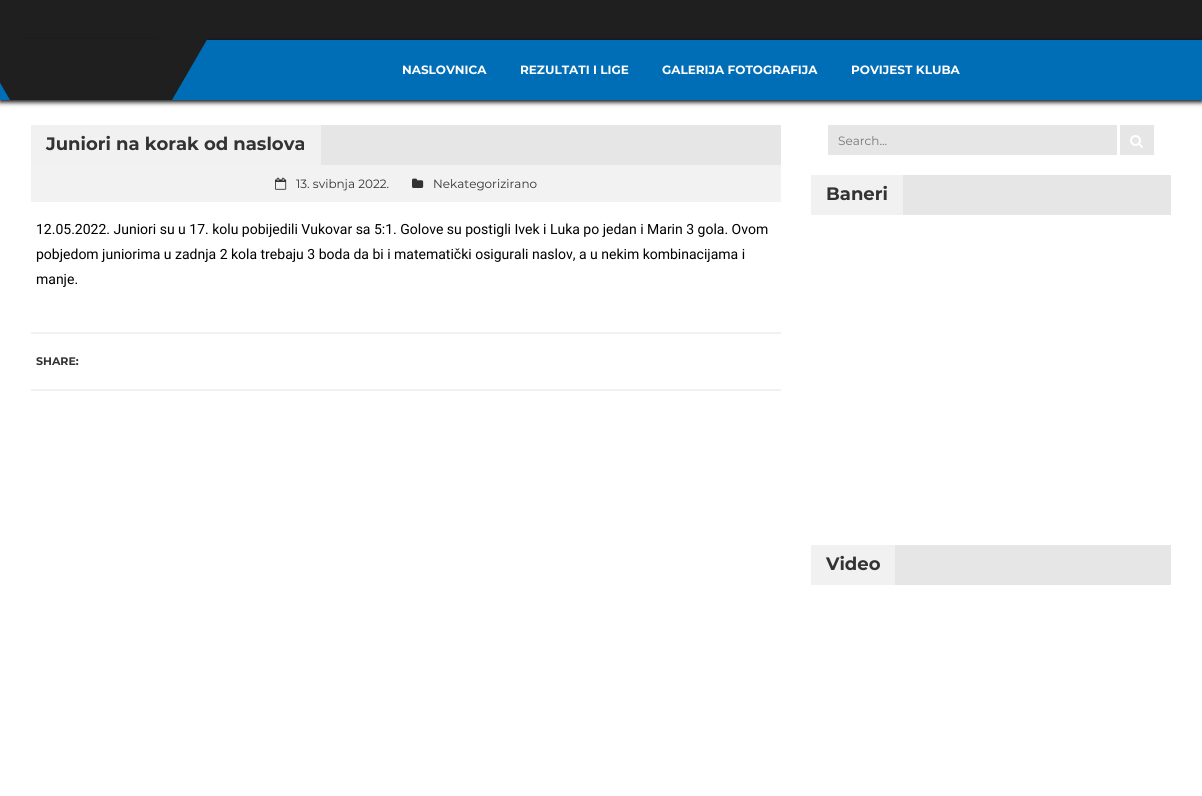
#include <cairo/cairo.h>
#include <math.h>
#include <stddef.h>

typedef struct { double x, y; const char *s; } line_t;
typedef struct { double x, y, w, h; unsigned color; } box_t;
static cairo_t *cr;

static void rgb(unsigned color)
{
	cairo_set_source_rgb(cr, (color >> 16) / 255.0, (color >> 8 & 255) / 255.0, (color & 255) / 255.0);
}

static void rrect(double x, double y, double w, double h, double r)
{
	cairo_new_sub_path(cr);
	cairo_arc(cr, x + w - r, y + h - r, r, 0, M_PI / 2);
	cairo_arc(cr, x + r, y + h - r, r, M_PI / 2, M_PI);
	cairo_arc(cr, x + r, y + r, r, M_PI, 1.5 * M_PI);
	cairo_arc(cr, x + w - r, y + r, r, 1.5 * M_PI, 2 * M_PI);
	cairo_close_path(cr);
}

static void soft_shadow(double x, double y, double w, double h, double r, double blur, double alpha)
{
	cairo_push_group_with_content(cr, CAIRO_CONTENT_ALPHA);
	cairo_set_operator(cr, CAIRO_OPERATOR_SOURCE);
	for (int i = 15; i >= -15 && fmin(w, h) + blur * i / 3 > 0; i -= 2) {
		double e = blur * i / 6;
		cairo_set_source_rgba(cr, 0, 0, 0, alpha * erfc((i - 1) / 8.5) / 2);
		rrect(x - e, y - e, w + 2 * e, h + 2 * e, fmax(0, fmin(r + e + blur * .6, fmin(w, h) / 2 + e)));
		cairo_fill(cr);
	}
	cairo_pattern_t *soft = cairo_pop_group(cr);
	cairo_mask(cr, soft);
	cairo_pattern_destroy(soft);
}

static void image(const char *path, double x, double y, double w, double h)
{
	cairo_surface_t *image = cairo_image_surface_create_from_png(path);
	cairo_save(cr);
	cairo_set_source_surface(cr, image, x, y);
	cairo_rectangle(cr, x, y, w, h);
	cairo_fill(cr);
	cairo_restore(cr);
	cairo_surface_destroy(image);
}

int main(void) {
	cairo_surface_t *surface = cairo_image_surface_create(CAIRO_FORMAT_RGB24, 1202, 796);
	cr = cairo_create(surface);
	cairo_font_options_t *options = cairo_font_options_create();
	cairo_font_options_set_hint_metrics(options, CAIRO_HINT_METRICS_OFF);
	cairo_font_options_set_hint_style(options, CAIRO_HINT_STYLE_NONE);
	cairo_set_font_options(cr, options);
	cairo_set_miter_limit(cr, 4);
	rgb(0xffffff);
	cairo_paint(cr);
	rgb(0x1f1f1f);
	cairo_rectangle(cr, 2, 0, 1200, 40);
	cairo_fill(cr);
	rgb(0x000000);
	soft_shadow(0, 42, 1202, 60, 0, 2.5, 1);
	rgb(0x006eb7);
	cairo_rectangle(cr, 0, 40, 1202, 60);
	cairo_fill(cr);
	rgb(0x1f1f1f);
	cairo_rectangle(cr, 16, 39, 150, 61);
	cairo_fill(cr);
	cairo_new_path(cr);
	cairo_move_to(cr, -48, 0);
	cairo_line_to(cr, 2, 0);
	cairo_line_to(cr, 60, 100);
	cairo_line_to(cr, 10, 100);
	cairo_close_path(cr);
	cairo_fill(cr);
	cairo_new_path(cr);
	cairo_move_to(cr, 180, 0);
	cairo_line_to(cr, 230, 0);
	cairo_line_to(cr, 172, 100);
	cairo_line_to(cr, 122, 100);
	cairo_close_path(cr);
	cairo_fill(cr);
	{
		static const box_t items[] = {
			{321, 125, 460, 40, 0xe6e6e6},
			{31, 125, 290, 40, 0xf1f1f1},
			{31, 165, 750, 37, 0xf2f2f2},
		};
		for (size_t i = 0; i < sizeof items / sizeof *items; i++) {
			rgb(items[i].color);
			cairo_rectangle(cr, items[i].x, items[i].y, items[i].w, items[i].h);
			cairo_fill(cr);
		}
	}
	image("img/1.png", 275, 177, 12, 13);
	image("img/2.png", 412, 178, 12, 10);
	{
		static const box_t items[] = {
			{31, 332, 750, 2, 0xf1f1f1},
			{31, 389, 750, 2, 0xf1f1f1},
			{828, 125, 289, 30, 0xe6e6e6},
			{1120, 125, 34, 30, 0xe6e6e6},
		};
		for (size_t i = 0; i < sizeof items / sizeof *items; i++) {
			rgb(items[i].color);
			cairo_rectangle(cr, items[i].x, items[i].y, items[i].w, items[i].h);
			cairo_fill(cr);
		}
	}
	image("img/3.png", 1130, 135, 13, 13);
	{
		static const box_t items[] = {
			{903, 175, 268, 40, 0xe6e6e6},
			{811, 175, 92, 40, 0xf1f1f1},
			{895, 545, 276, 40, 0xe6e6e6},
			{811, 545, 84, 40, 0xf1f1f1},
		};
		for (size_t i = 0; i < sizeof items / sizeof *items; i++) {
			rgb(items[i].color);
			cairo_rectangle(cr, items[i].x, items[i].y, items[i].w, items[i].h);
			cairo_fill(cr);
		}
	}
	cairo_select_font_face(cr, "Montserrat", CAIRO_FONT_SLANT_NORMAL, CAIRO_FONT_WEIGHT_BOLD);
	cairo_set_font_size(cr, 12);
	rgb(0xffffff);
	{
		static const line_t items[] = {
			{402, 74, "NASLOVNICA"},
			{520, 74, "REZULTATI I LIGE"},
			{662, 74, "GALERIJA FOTOGRAFIJA"},
			{851, 74, "POVIJEST KLUBA"},
		};
		for (size_t i = 0; i < sizeof items / sizeof *items; i++) {
			cairo_move_to(cr, items[i].x, items[i].y);
			cairo_show_text(cr, items[i].s);
		}
	}
	cairo_set_font_size(cr, 18);
	rgb(0x333333);
	cairo_move_to(cr, 46, 150);
	cairo_show_text(cr, "Juniori na korak od naslova");
	cairo_select_font_face(cr, "Montserrat", CAIRO_FONT_SLANT_NORMAL, CAIRO_FONT_WEIGHT_NORMAL);
	cairo_set_font_size(cr, 12);
	cairo_move_to(cr, 296, 188);
	cairo_show_text(cr, "13. svibnja 2022.");
	cairo_move_to(cr, 433, 188);
	cairo_show_text(cr, "Nekategorizirano");
	cairo_select_font_face(cr, "Roboto", CAIRO_FONT_SLANT_NORMAL, CAIRO_FONT_WEIGHT_NORMAL);
	cairo_set_font_size(cr, 14);
	rgb(0x000000);
	{
		static const line_t items[] = {
			{36, 234, "12.05.2022. Juniori su u 17. kolu pobijedili Vukovar sa 5:1. Golove su postigli Ivek i Luka po jedan i Marin 3 gola. Ovom"},
			{36, 259, "pobjedom juniorima u zadnja 2 kola trebaju 3 boda da bi i matematički osigurali naslov, a u nekim kombinacijama i"},
			{36, 284, "manje."},
		};
		for (size_t i = 0; i < sizeof items / sizeof *items; i++) {
			cairo_move_to(cr, items[i].x, items[i].y);
			cairo_show_text(cr, items[i].s);
		}
	}
	cairo_select_font_face(cr, "Montserrat", CAIRO_FONT_SLANT_NORMAL, CAIRO_FONT_WEIGHT_BOLD);
	cairo_set_font_size(cr, 11);
	rgb(0x333333);
	cairo_move_to(cr, 36, 365);
	cairo_show_text(cr, "SHARE:");
	cairo_select_font_face(cr, "Montserrat", CAIRO_FONT_SLANT_NORMAL, CAIRO_FONT_WEIGHT_NORMAL);
	cairo_set_font_size(cr, 12);
	rgb(0x757575);
	cairo_move_to(cr, 838, 145);
	cairo_show_text(cr, "Search...");
	cairo_select_font_face(cr, "Montserrat", CAIRO_FONT_SLANT_NORMAL, CAIRO_FONT_WEIGHT_BOLD);
	cairo_set_font_size(cr, 18);
	rgb(0x333333);
	cairo_move_to(cr, 826, 200);
	cairo_show_text(cr, "Baneri");
	cairo_move_to(cr, 826, 570);
	cairo_show_text(cr, "Video");
	cairo_surface_write_to_png(surface, "page.png");
	cairo_font_options_destroy(options);
	cairo_destroy(cr);
	cairo_surface_destroy(surface);
	return 0;
}
